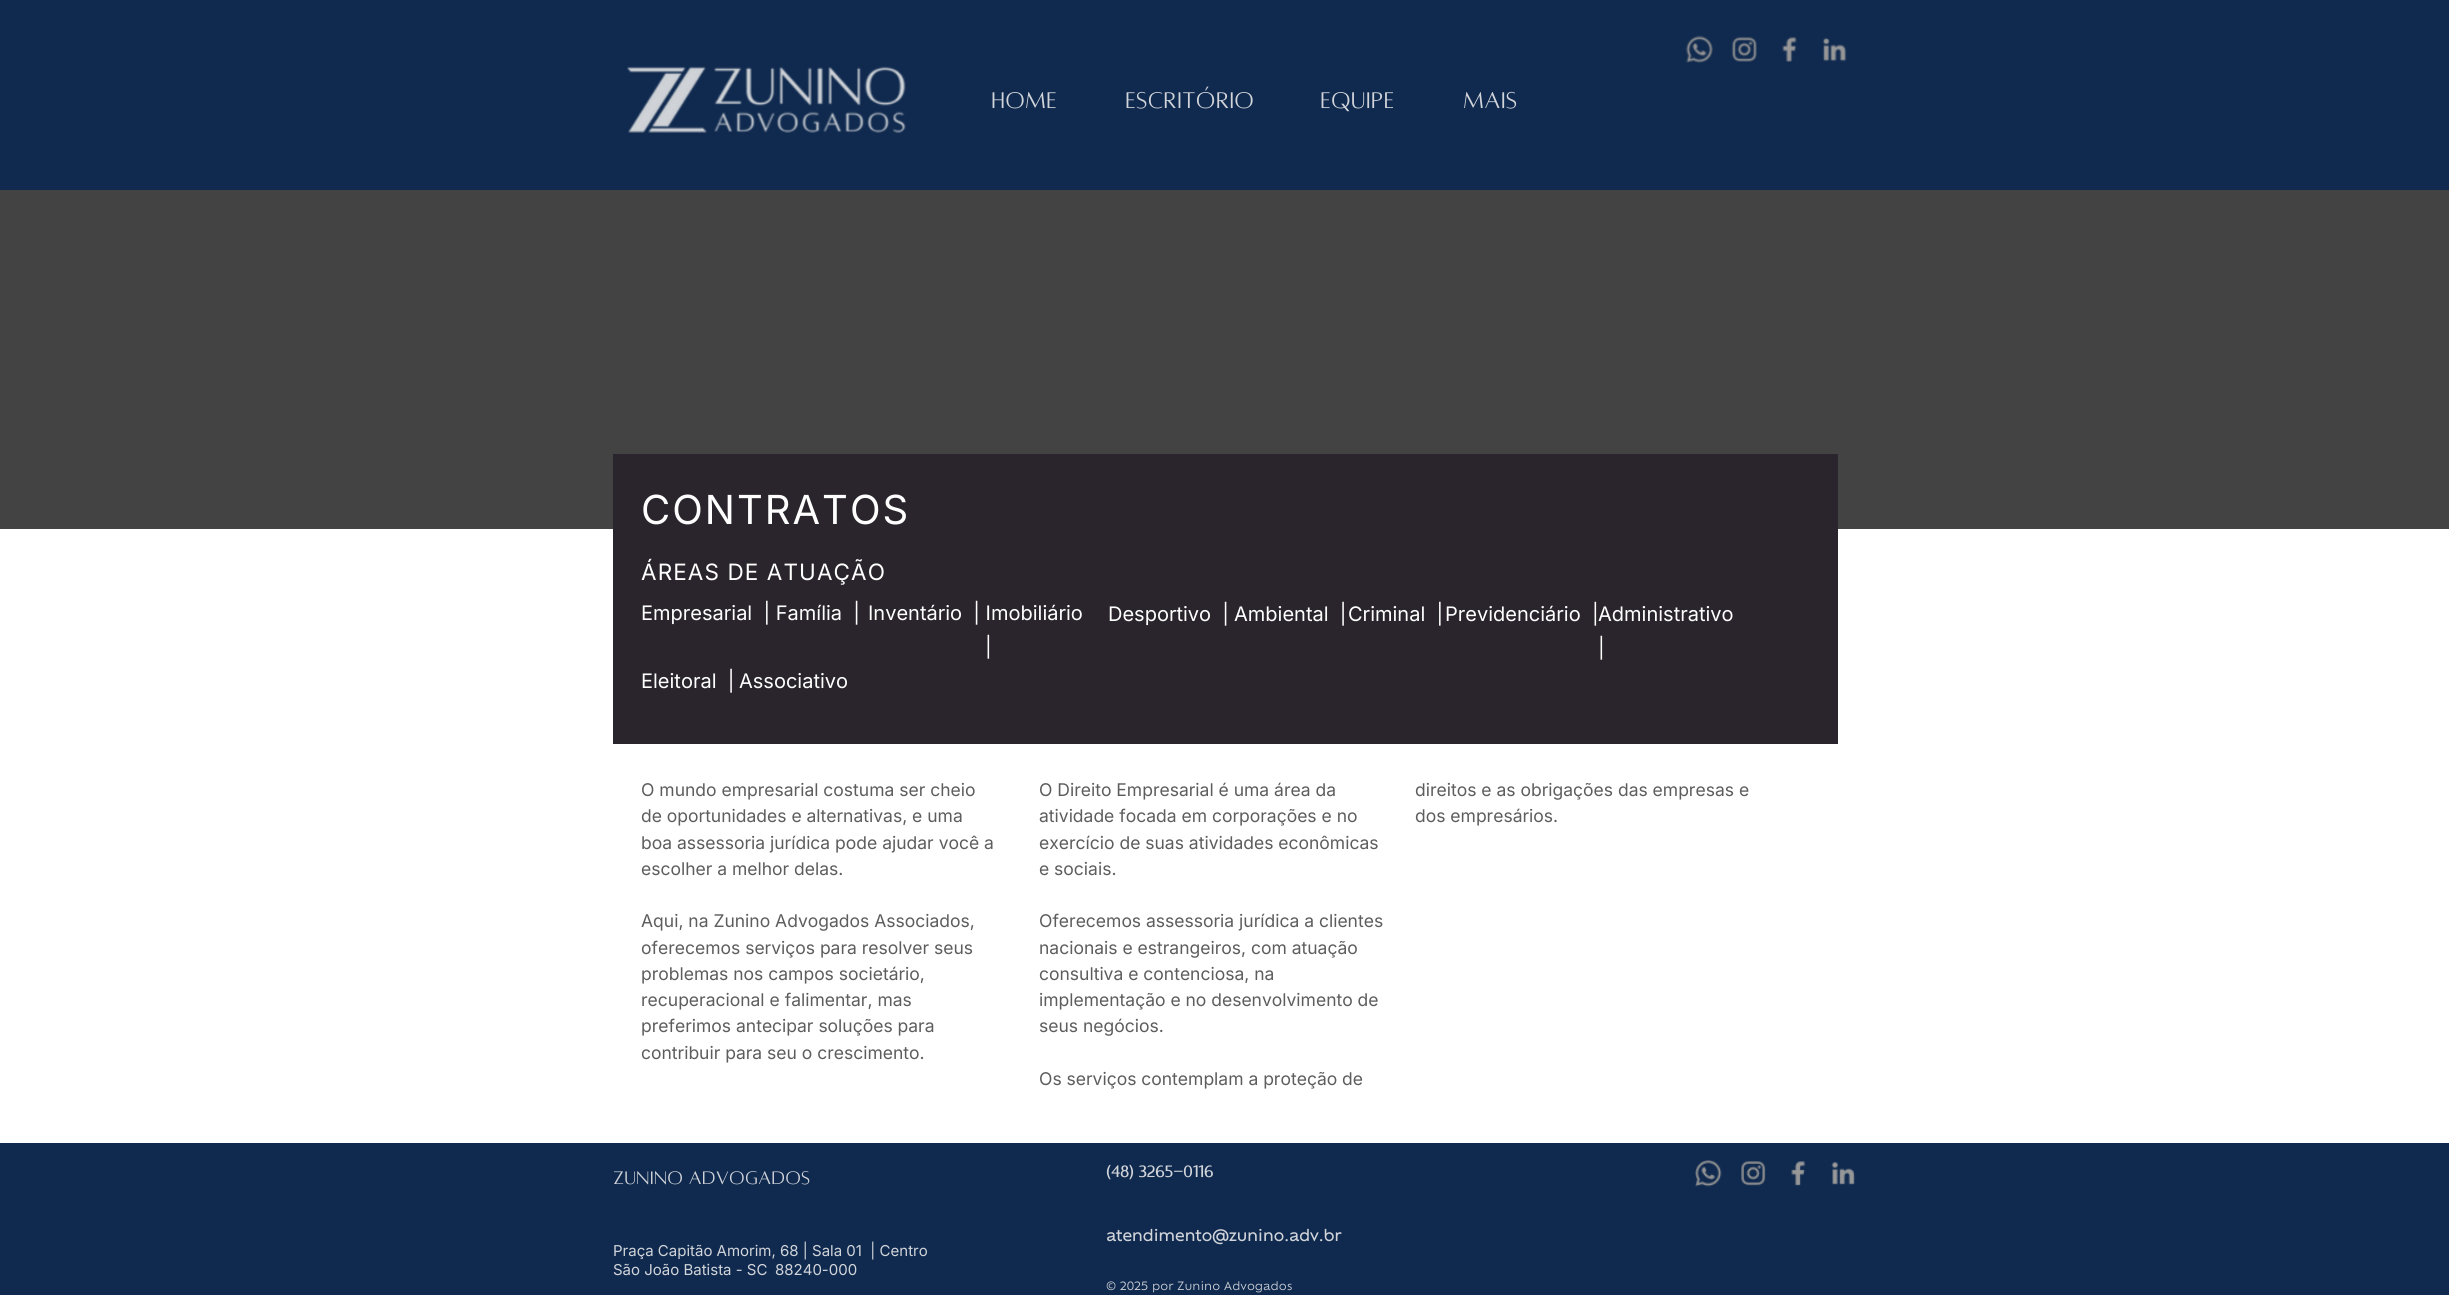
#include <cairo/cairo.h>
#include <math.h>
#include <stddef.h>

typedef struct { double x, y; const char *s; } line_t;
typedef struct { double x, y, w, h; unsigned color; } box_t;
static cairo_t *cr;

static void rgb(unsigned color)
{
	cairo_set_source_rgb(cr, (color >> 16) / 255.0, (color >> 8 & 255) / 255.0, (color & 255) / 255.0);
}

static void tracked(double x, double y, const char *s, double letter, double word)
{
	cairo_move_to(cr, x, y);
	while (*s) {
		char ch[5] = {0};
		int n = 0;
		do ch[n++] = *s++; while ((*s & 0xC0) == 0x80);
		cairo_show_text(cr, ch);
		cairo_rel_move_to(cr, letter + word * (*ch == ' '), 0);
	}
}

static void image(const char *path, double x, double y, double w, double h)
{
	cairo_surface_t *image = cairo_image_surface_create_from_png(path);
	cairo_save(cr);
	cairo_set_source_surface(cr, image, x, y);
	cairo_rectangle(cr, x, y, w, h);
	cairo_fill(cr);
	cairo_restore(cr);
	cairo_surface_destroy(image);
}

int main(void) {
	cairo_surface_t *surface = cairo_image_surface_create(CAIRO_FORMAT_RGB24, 2449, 1295);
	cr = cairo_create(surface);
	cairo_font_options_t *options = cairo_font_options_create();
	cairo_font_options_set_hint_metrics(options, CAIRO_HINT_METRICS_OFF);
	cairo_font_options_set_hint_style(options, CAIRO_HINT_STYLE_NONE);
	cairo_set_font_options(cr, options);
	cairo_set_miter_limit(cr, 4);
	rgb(0xffffff);
	cairo_paint(cr);
	rgb(0x102a4f);
	cairo_rectangle(cr, 0, 0, 2449, 190);
	cairo_fill(cr);
	image("img/1.png", 1685, 35, 28, 28);
	image("img/2.png", 1731, 36, 26, 26);
	image("img/3.png", 1782, 36, 15, 26);
	image("img/4.png", 1822, 37, 25, 25);
	image("img/5.png", 627, 66, 279, 67);
	{
		static const box_t items[] = {
			{0, 190, 2449, 339, 0x434343},
			{613, 454, 1225, 290, 0x2a252c},
			{0, 1143, 2449, 152, 0x102a4f},
		};
		for (size_t i = 0; i < sizeof items / sizeof *items; i++) {
			rgb(items[i].color);
			cairo_rectangle(cr, items[i].x, items[i].y, items[i].w, items[i].h);
			cairo_fill(cr);
		}
	}
	image("img/6.png", 1695, 1160, 27, 27);
	image("img/7.png", 1741, 1161, 25, 25);
	image("img/8.png", 1791, 1161, 15, 25);
	image("img/9.png", 1831, 1161, 24, 24);
	cairo_select_font_face(cr, "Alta", CAIRO_FONT_SLANT_NORMAL, CAIRO_FONT_WEIGHT_NORMAL);
	cairo_set_font_size(cr, 25);
	rgb(0xd1d4d9);
	{
		static const line_t items[] = {
			{991, 108, "HOME"},
			{1125, 108, "ESCRITÓRIO"},
			{1320, 108, "EQUIPE"},
			{1463, 108, "MAIS"},
		};
		for (size_t i = 0; i < sizeof items / sizeof *items; i++) {
			cairo_move_to(cr, items[i].x, items[i].y);
			cairo_show_text(cr, items[i].s);
		}
	}
	cairo_select_font_face(cr, "Inter", CAIRO_FONT_SLANT_NORMAL, CAIRO_FONT_WEIGHT_NORMAL);
	cairo_set_font_size(cr, 40);
	rgb(0xffffff);
	tracked(641, 524, "CONTRATOS", 2, 0);
	cairo_set_font_size(cr, 22.5);
	tracked(641, 580, "ÁREAS DE ATUAÇÃO", 1.1, 0);
	cairo_set_font_size(cr, 20);
	{
		static const line_t items[] = {
			{641, 620, "Empresarial  | Família  |"},
			{868, 620, "Inventário  | Imobiliário"},
			{1108, 621, "Desportivo  |"},
			{1234, 621, "Ambiental  |"},
			{1348, 621, "Criminal  |"},
			{1445, 621, "Previdenciário  |"},
			{1598, 621, "Administrativo"},
			{1598, 655, "|"},
			{985, 654, "|"},
			{641, 688, "Eleitoral  |"},
			{739, 688, "Associativo"},
		};
		for (size_t i = 0; i < sizeof items / sizeof *items; i++) {
			cairo_move_to(cr, items[i].x, items[i].y);
			cairo_show_text(cr, items[i].s);
		}
	}
	cairo_set_font_size(cr, 17.5);
	rgb(0x5d5d5d);
	{
		static const line_t items[] = {
			{641, 796, "O mundo empresarial costuma ser cheio"},
			{641, 822, "de oportunidades e alternativas, e uma"},
			{641, 849, "boa assessoria jurídica pode ajudar você a"},
			{641, 875, "escolher a melhor delas."},
			{641, 927, "Aqui, na Zunino Advogados Associados,"},
			{641, 954, "oferecemos serviços para resolver seus"},
			{641, 980, "problemas nos campos societário,"},
			{641, 1006, "recuperacional e falimentar, mas"},
			{641, 1032, "preferimos antecipar soluções para"},
			{641, 1059, "contribuir para seu o crescimento."},
			{1039, 796, "O Direito Empresarial é uma área da"},
			{1039, 822, "atividade focada em corporações e no"},
			{1039, 849, "exercício de suas atividades econômicas"},
			{1039, 875, "e sociais."},
			{1039, 927, "Oferecemos assessoria jurídica a clientes"},
			{1039, 954, "nacionais e estrangeiros, com atuação"},
			{1039, 980, "consultiva e contenciosa, na"},
			{1039, 1006, "implementação e no desenvolvimento de"},
			{1039, 1032, "seus negócios."},
			{1039, 1085, "Os serviços contemplam a proteção de"},
			{1415, 796, "direitos e as obrigações das empresas e"},
			{1415, 822, "dos empresários."},
		};
		for (size_t i = 0; i < sizeof items / sizeof *items; i++) {
			cairo_move_to(cr, items[i].x, items[i].y);
			cairo_show_text(cr, items[i].s);
		}
	}
	cairo_select_font_face(cr, "Alta", CAIRO_FONT_SLANT_NORMAL, CAIRO_FONT_WEIGHT_NORMAL);
	cairo_set_font_size(cr, 20);
	rgb(0xd1d4d9);
	cairo_move_to(cr, 613, 1184);
	cairo_show_text(cr, "ZUNINO ADVOGADOS");
	cairo_select_font_face(cr, "Alta", CAIRO_FONT_SLANT_NORMAL, CAIRO_FONT_WEIGHT_BOLD);
	cairo_set_font_size(cr, 17.5);
	cairo_move_to(cr, 1106, 1177);
	cairo_show_text(cr, "(48) 3265-0116");
	cairo_select_font_face(cr, "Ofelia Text", CAIRO_FONT_SLANT_NORMAL, CAIRO_FONT_WEIGHT_BOLD);
	cairo_set_font_size(cr, 15);
	cairo_move_to(cr, 1106, 1241);
	cairo_show_text(cr, "atendimento@zunino.adv.br");
	cairo_select_font_face(cr, "Inter", CAIRO_FONT_SLANT_NORMAL, CAIRO_FONT_WEIGHT_NORMAL);
	{
		static const line_t items[] = {
			{613, 1256, "Praça Capitão Amorim, 68 | Sala 01  | Centro"},
			{613, 1275, "São João Batista - SC"},
			{775, 1275, "88240-000"},
		};
		for (size_t i = 0; i < sizeof items / sizeof *items; i++) {
			cairo_move_to(cr, items[i].x, items[i].y);
			cairo_show_text(cr, items[i].s);
		}
	}
	cairo_select_font_face(cr, "Ofelia Text", CAIRO_FONT_SLANT_NORMAL, CAIRO_FONT_WEIGHT_NORMAL);
	cairo_set_font_size(cr, 11.25);
	cairo_move_to(cr, 1106, 1290);
	cairo_show_text(cr, "© 2025 por Zunino Advogados");
	cairo_surface_write_to_png(surface, "page.png");
	cairo_font_options_destroy(options);
	cairo_destroy(cr);
	cairo_surface_destroy(surface);
	return 0;
}
